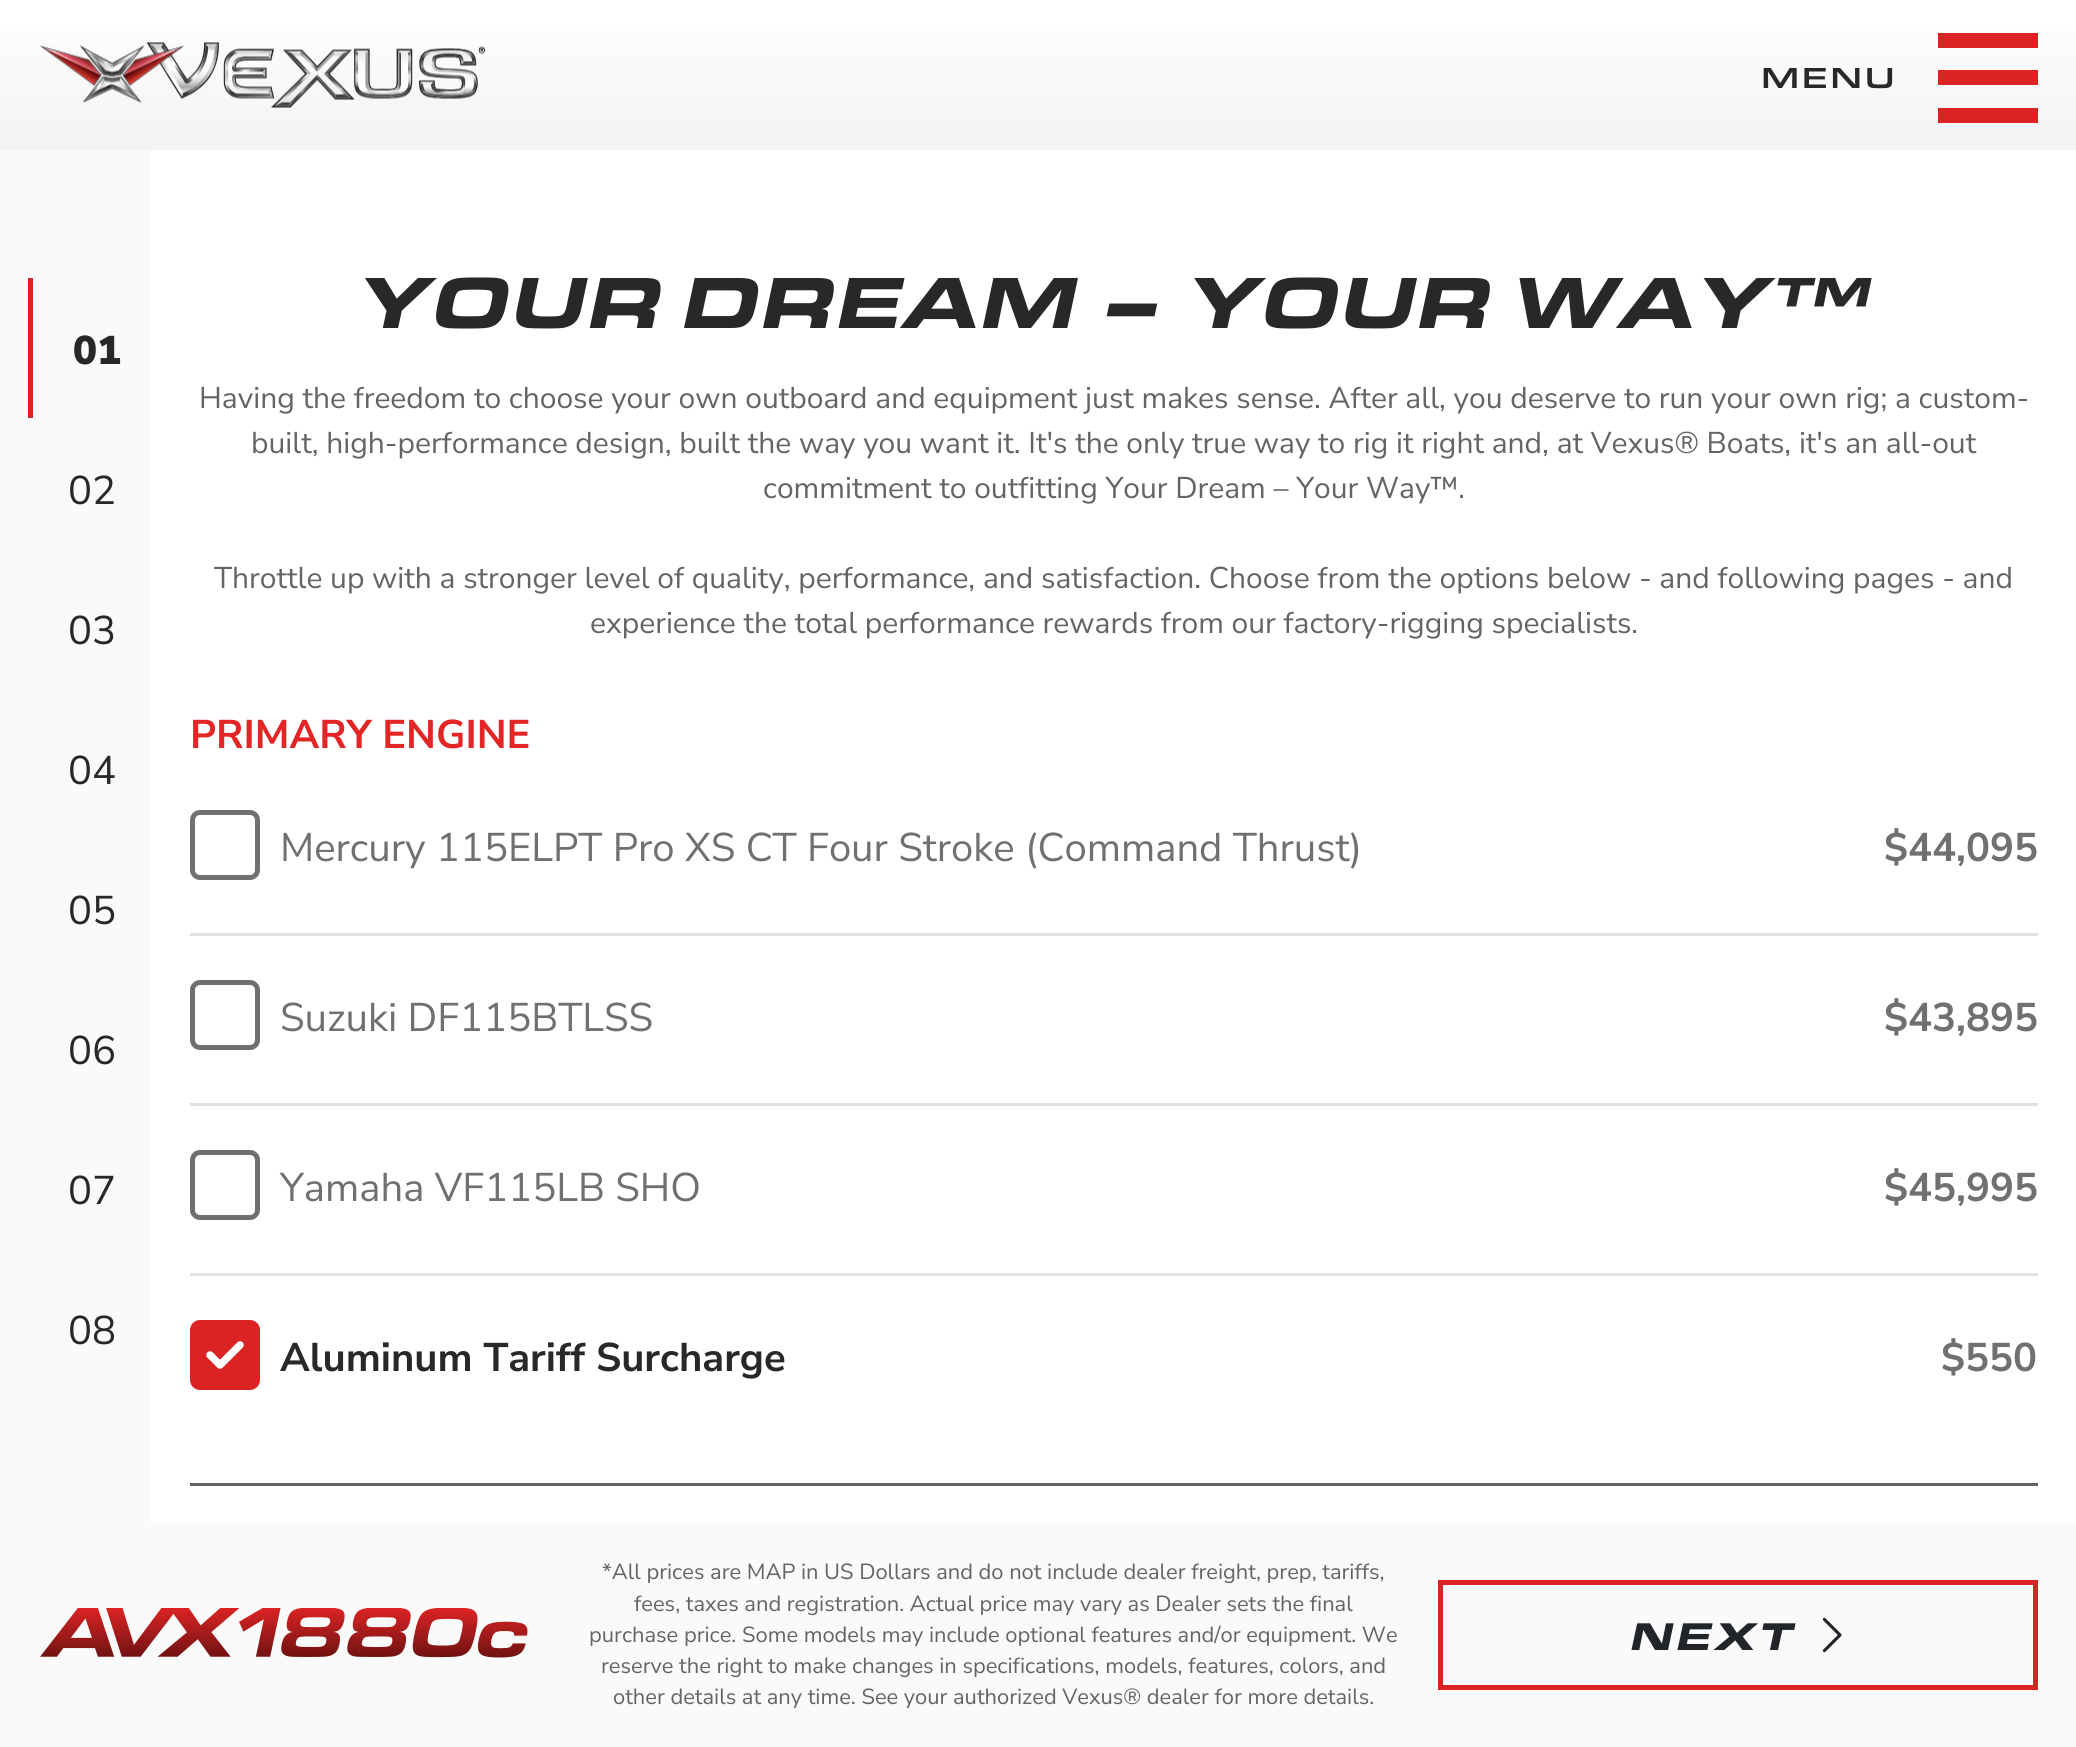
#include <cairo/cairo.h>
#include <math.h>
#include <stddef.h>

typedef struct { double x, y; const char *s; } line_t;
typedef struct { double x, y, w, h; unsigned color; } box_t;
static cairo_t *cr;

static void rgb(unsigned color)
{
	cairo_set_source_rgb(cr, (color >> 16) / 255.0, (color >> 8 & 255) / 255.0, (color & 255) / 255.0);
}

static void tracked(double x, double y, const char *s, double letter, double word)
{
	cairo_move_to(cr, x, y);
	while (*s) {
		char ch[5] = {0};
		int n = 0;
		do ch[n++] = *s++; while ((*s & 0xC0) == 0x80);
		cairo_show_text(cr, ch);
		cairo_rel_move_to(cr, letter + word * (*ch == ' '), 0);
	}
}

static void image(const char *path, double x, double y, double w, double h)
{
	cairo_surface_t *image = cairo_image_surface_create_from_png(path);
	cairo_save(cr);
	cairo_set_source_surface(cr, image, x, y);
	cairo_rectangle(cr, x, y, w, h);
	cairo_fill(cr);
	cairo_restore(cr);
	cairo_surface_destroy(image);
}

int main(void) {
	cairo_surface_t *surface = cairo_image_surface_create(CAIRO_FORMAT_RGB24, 2076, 1747);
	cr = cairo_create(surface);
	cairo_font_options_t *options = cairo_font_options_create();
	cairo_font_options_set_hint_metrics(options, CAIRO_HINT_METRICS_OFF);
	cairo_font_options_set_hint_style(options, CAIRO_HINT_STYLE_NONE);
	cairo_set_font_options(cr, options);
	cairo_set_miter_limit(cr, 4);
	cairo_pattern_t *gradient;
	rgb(0xffffff);
	cairo_paint(cr);
	gradient = cairo_pattern_create_linear(1039, 0, 1039, 150);
	cairo_pattern_add_color_stop_rgba(gradient, 0, 1, 1, 1, 1);
	cairo_pattern_add_color_stop_rgba(gradient, 1, 0.953, 0.953, 0.953, 1);
	cairo_set_source(cr, gradient);
	cairo_pattern_destroy(gradient);
	cairo_rectangle(cr, 0, 31, 2076, 119);
	cairo_fill(cr);
	image("img/1.png", 40, 42, 445, 66);
	{
		static const box_t items[] = {
			{1938, 70, 100, 15, 0xdc2323},
			{1938, 33, 100, 15, 0xdc2323},
			{1938, 108, 100, 15, 0xdc2323},
			{0, 150, 150, 1373, 0xfafafa},
			{28, 278, 5, 140, 0xdc2323},
			{190, 1483, 1848, 3, 0x646464},
			{190, 933, 1848, 3, 0xe1e1e1},
		};
		for (size_t i = 0; i < sizeof items / sizeof *items; i++) {
			rgb(items[i].color);
			cairo_rectangle(cr, items[i].x, items[i].y, items[i].w, items[i].h);
			cairo_fill(cr);
		}
	}
	image("img/2.png", 190, 810, 70, 70);
	cairo_rectangle(cr, 190, 1103, 1848, 3);
	cairo_fill(cr);
	image("img/2.png", 190, 980, 70, 70);
	cairo_rectangle(cr, 190, 1273, 1848, 3);
	cairo_fill(cr);
	image("img/2.png", 190, 1150, 70, 70);
	image("img/3.png", 190, 1320, 70, 70);
	rgb(0xfafafa);
	cairo_rectangle(cr, 0, 1523, 2076, 224);
	cairo_fill(cr);
	image("img/4.png", 40, 1608, 488, 50);
	cairo_rectangle(cr, 1440.5, 1582.5, 595, 105);
	rgb(0xdc2323);
	cairo_set_line_width(cr, 5);
	cairo_stroke(cr);
	image("img/5.png", 1822, 1617, 20, 36);
	cairo_select_font_face(cr, "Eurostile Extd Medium", CAIRO_FONT_SLANT_NORMAL, CAIRO_FONT_WEIGHT_NORMAL);
	cairo_set_font_size(cr, 30);
	rgb(0x282828);
	tracked(1761, 88, "MENU", 2.5, 0);
	cairo_select_font_face(cr, "Nunito Sans Black", CAIRO_FONT_SLANT_NORMAL, CAIRO_FONT_WEIGHT_NORMAL);
	cairo_set_font_size(cr, 40);
	cairo_move_to(cr, 73, 364);
	cairo_show_text(cr, "01");
	cairo_select_font_face(cr, "Nunito Sans", CAIRO_FONT_SLANT_NORMAL, CAIRO_FONT_WEIGHT_NORMAL);
	{
		static const line_t items[] = {
			{68, 504, "02"},
			{68, 644, "03"},
			{68, 784, "04"},
			{68, 924, "05"},
			{68, 1064, "06"},
			{68, 1204, "07"},
			{68, 1344, "08"},
		};
		for (size_t i = 0; i < sizeof items / sizeof *items; i++) {
			cairo_move_to(cr, items[i].x, items[i].y);
			cairo_show_text(cr, items[i].s);
		}
	}
	cairo_select_font_face(cr, "Eurostile Extd Black", CAIRO_FONT_SLANT_ITALIC, CAIRO_FONT_WEIGHT_NORMAL);
	cairo_set_font_size(cr, 75);
	cairo_move_to(cr, 357, 328);
	cairo_show_text(cr, "YOUR DREAM – YOUR WAY™");
	cairo_select_font_face(cr, "Nunito Sans", CAIRO_FONT_SLANT_NORMAL, CAIRO_FONT_WEIGHT_NORMAL);
	cairo_set_font_size(cr, 30);
	rgb(0x646464);
	{
		static const line_t items[] = {
			{199, 408, "Having the freedom to choose your own outboard and equipment just makes sense. After all, you deserve to run your own rig; a custom-"},
			{251, 453, "built, high-performance design, built the way you want it. It's the only true way to rig it right and, at Vexus® Boats, it's an all-out"},
			{763, 498, "commitment to outfitting Your Dream – Your Way™."},
			{214, 588, "Throttle up with a stronger level of quality, performance, and satisfaction. Choose from the options below - and following pages - and"},
			{590, 633, "experience the total performance rewards from our factory-rigging specialists."},
		};
		for (size_t i = 0; i < sizeof items / sizeof *items; i++) {
			cairo_move_to(cr, items[i].x, items[i].y);
			cairo_show_text(cr, items[i].s);
		}
	}
	cairo_select_font_face(cr, "Nunito Sans", CAIRO_FONT_SLANT_NORMAL, CAIRO_FONT_WEIGHT_BOLD);
	cairo_set_font_size(cr, 40);
	rgb(0xe32526);
	cairo_move_to(cr, 190, 748);
	cairo_show_text(cr, "PRIMARY ENGINE");
	cairo_select_font_face(cr, "Nunito Sans", CAIRO_FONT_SLANT_NORMAL, CAIRO_FONT_WEIGHT_NORMAL);
	rgb(0x707070);
	cairo_move_to(cr, 280, 861);
	cairo_show_text(cr, "Mercury 115ELPT Pro XS CT Four Stroke (Command Thrust)");
	cairo_select_font_face(cr, "Nunito Sans", CAIRO_FONT_SLANT_NORMAL, CAIRO_FONT_WEIGHT_BOLD);
	cairo_move_to(cr, 1884, 861);
	cairo_show_text(cr, "$44,095");
	cairo_select_font_face(cr, "Nunito Sans", CAIRO_FONT_SLANT_NORMAL, CAIRO_FONT_WEIGHT_NORMAL);
	cairo_move_to(cr, 280, 1031);
	cairo_show_text(cr, "Suzuki DF115BTLSS");
	cairo_select_font_face(cr, "Nunito Sans", CAIRO_FONT_SLANT_NORMAL, CAIRO_FONT_WEIGHT_BOLD);
	cairo_move_to(cr, 1884, 1031);
	cairo_show_text(cr, "$43,895");
	cairo_select_font_face(cr, "Nunito Sans", CAIRO_FONT_SLANT_NORMAL, CAIRO_FONT_WEIGHT_NORMAL);
	cairo_move_to(cr, 280, 1201);
	cairo_show_text(cr, "Yamaha VF115LB SHO");
	cairo_select_font_face(cr, "Nunito Sans", CAIRO_FONT_SLANT_NORMAL, CAIRO_FONT_WEIGHT_BOLD);
	cairo_move_to(cr, 1884, 1201);
	cairo_show_text(cr, "$45,995");
	rgb(0x282828);
	cairo_move_to(cr, 280, 1371);
	cairo_show_text(cr, "Aluminum Tariff Surcharge");
	rgb(0x707070);
	cairo_move_to(cr, 1941, 1371);
	cairo_show_text(cr, "$550");
	cairo_select_font_face(cr, "Nunito Sans", CAIRO_FONT_SLANT_NORMAL, CAIRO_FONT_WEIGHT_NORMAL);
	cairo_set_font_size(cr, 21.9);
	rgb(0x646464);
	{
		static const line_t items[] = {
			{602, 1579, "*All prices are MAP in US Dollars and do not include dealer freight, prep, tariffs,"},
			{634, 1611, "fees, taxes and registration. Actual price may vary as Dealer sets the final"},
			{589, 1642, "purchase price. Some models may include optional features and/or equipment. We"},
			{601, 1673, "reserve the right to make changes in specifications, models, features, colors, and"},
			{613, 1704, "other details at any time. See your authorized Vexus® dealer for more details."},
		};
		for (size_t i = 0; i < sizeof items / sizeof *items; i++) {
			cairo_move_to(cr, items[i].x, items[i].y);
			cairo_show_text(cr, items[i].s);
		}
	}
	cairo_select_font_face(cr, "Eurostile Extd Black", CAIRO_FONT_SLANT_ITALIC, CAIRO_FONT_WEIGHT_NORMAL);
	cairo_set_font_size(cr, 40);
	rgb(0x212529);
	tracked(1630, 1650, "NEXT", 2.5, 0);
	cairo_surface_write_to_png(surface, "page.png");
	cairo_font_options_destroy(options);
	cairo_destroy(cr);
	cairo_surface_destroy(surface);
	return 0;
}
